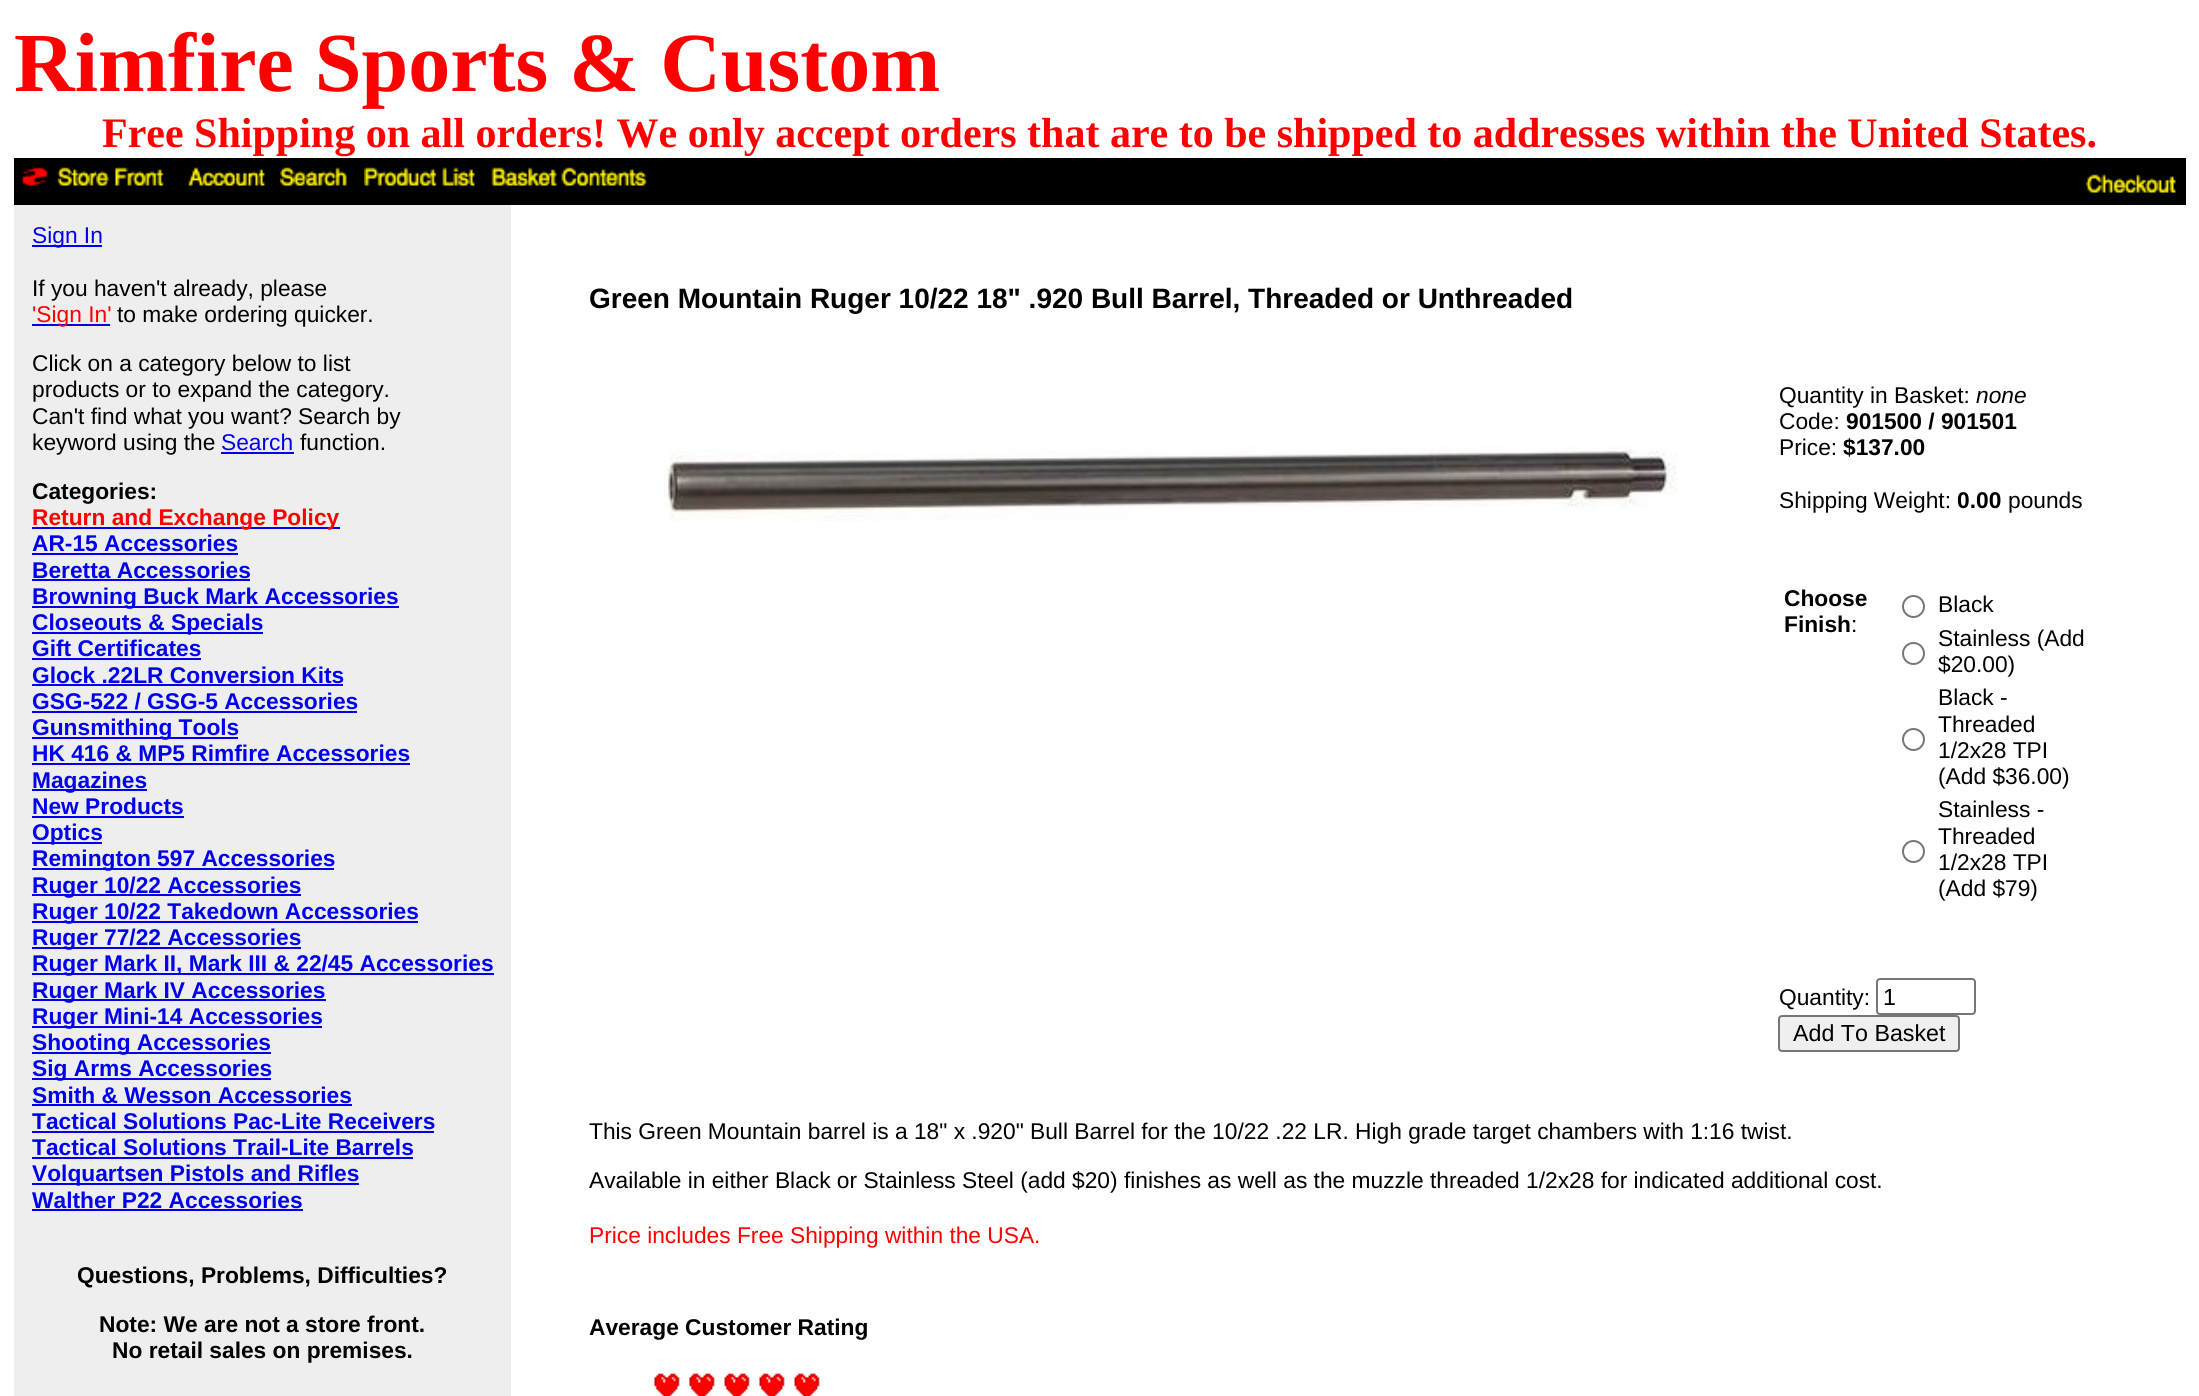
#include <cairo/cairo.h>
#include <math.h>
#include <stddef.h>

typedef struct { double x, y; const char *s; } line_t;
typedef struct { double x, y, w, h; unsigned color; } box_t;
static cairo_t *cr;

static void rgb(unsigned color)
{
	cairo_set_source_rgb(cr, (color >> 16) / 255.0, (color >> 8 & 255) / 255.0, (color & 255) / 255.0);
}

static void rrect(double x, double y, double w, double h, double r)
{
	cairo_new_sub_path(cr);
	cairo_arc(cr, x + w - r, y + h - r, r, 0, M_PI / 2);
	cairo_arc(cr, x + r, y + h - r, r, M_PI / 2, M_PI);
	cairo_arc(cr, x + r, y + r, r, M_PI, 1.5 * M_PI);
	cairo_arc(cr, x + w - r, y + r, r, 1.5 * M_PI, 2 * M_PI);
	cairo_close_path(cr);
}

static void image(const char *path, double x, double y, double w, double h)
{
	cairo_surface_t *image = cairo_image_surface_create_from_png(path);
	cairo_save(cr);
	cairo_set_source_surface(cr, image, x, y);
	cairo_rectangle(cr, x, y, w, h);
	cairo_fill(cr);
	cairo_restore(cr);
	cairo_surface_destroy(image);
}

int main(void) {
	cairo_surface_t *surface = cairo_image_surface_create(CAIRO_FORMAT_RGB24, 2199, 1396);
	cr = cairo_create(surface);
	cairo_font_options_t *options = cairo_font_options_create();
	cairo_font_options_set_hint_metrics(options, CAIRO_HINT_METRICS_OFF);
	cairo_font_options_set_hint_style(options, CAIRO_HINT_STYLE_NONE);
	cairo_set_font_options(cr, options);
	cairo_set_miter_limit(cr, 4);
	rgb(0xffffff);
	cairo_paint(cr);
	rgb(0x000000);
	cairo_rectangle(cr, 14, 158, 2172, 47);
	cairo_fill(cr);
	image("img/1.png", 22, 167, 26, 19);
	image("img/2.png", 57, 167, 107, 19);
	image("img/3.png", 188, 167, 77, 19);
	image("img/4.png", 280, 167, 67, 19);
	image("img/5.png", 364, 167, 111, 19);
	image("img/6.png", 491, 167, 156, 19);
	image("img/7.png", 2086, 174, 90, 19);
	{
		static const box_t items[] = {
			{14, 205, 497, 1191, 0xeeeeee},
			{32, 245, 70, 2, 0x0000ee},
			{32, 324, 78, 2, 0x0000ee},
			{221, 452, 73, 2, 0x0000ee},
			{32, 527, 308, 2, 0x0000ee},
			{32, 553, 206, 2, 0x0000ee},
			{32, 579, 218, 2, 0x0000ee},
			{32, 606, 367, 2, 0x0000ee},
			{32, 632, 231, 2, 0x0000ee},
			{32, 658, 169, 2, 0x0000ee},
			{32, 684, 311, 2, 0x0000ee},
			{32, 711, 325, 2, 0x0000ee},
			{32, 737, 206, 2, 0x0000ee},
			{32, 763, 378, 2, 0x0000ee},
			{32, 789, 115, 2, 0x0000ee},
			{32, 816, 152, 2, 0x0000ee},
			{32, 842, 70, 2, 0x0000ee},
			{32, 868, 302, 2, 0x0000ee},
			{32, 894, 269, 2, 0x0000ee},
			{32, 921, 386, 2, 0x0000ee},
			{32, 947, 269, 2, 0x0000ee},
			{32, 973, 462, 2, 0x0000ee},
			{32, 999, 294, 2, 0x0000ee},
			{32, 1026, 290, 2, 0x0000ee},
			{32, 1052, 239, 2, 0x0000ee},
			{32, 1078, 239, 2, 0x0000ee},
			{32, 1104, 320, 2, 0x0000ee},
			{32, 1131, 402, 2, 0x0000ee},
			{32, 1157, 381, 2, 0x0000ee},
			{32, 1183, 327, 2, 0x0000ee},
			{32, 1209, 271, 2, 0x0000ee},
		};
		for (size_t i = 0; i < sizeof items / sizeof *items; i++) {
			rgb(items[i].color);
			cairo_rectangle(cr, items[i].x, items[i].y, items[i].w, items[i].h);
			cairo_fill(cr);
		}
	}
	image("img/8.png", 664, 445, 1013, 77);
	cairo_arc(cr, 1913.5, 606.5, 10.5, 0, 2 * M_PI);
	rgb(0x767676);
	cairo_stroke(cr);
	cairo_arc(cr, 1913.5, 653.5, 10.5, 0, 2 * M_PI);
	cairo_stroke(cr);
	cairo_arc(cr, 1913.5, 739.5, 10.5, 0, 2 * M_PI);
	cairo_stroke(cr);
	cairo_arc(cr, 1913.5, 851.5, 10.5, 0, 2 * M_PI);
	cairo_stroke(cr);
	rrect(1877, 979, 98, 35, 3);
	cairo_stroke(cr);
	rgb(0xefefef);
	rrect(1779, 1016, 180, 35, 3);
	cairo_fill_preserve(cr);
	rgb(0x767676);
	cairo_stroke(cr);
	image("img/9.png", 654, 1373, 26, 23);
	image("img/9.png", 689, 1373, 26, 23);
	image("img/10.png", 724, 1373, 26, 23);
	image("img/9.png", 759, 1373, 26, 23);
	image("img/10.png", 794, 1373, 26, 23);
	cairo_select_font_face(cr, "Liberation Serif", CAIRO_FONT_SLANT_NORMAL, CAIRO_FONT_WEIGHT_BOLD);
	cairo_set_font_size(cr, 84);
	rgb(0xff0000);
	cairo_move_to(cr, 14, 91);
	cairo_show_text(cr, "Rimfire Sports & Custom");
	cairo_set_font_size(cr, 42);
	cairo_move_to(cr, 102, 147);
	cairo_show_text(cr, "Free Shipping on all orders! We only accept orders that are to be shipped to addresses within the United States.");
	cairo_select_font_face(cr, "Liberation Sans", CAIRO_FONT_SLANT_NORMAL, CAIRO_FONT_WEIGHT_NORMAL);
	cairo_set_font_size(cr, 22.75);
	rgb(0x0000ee);
	cairo_move_to(cr, 32, 243);
	cairo_show_text(cr, "Sign In");
	rgb(0x000000);
	cairo_move_to(cr, 32, 296);
	cairo_show_text(cr, "If you haven't already, please");
	rgb(0xff0000);
	cairo_move_to(cr, 32, 322);
	cairo_show_text(cr, "'Sign In'");
	rgb(0x000000);
	{
		static const line_t items[] = {
			{117, 322, "to make ordering quicker."},
			{32, 371, "Click on a category below to list"},
			{32, 397, "products or to expand the category."},
			{32, 424, "Can't find what you want? Search by"},
			{32, 450, "keyword using the"},
		};
		for (size_t i = 0; i < sizeof items / sizeof *items; i++) {
			cairo_move_to(cr, items[i].x, items[i].y);
			cairo_show_text(cr, items[i].s);
		}
	}
	rgb(0x0000ee);
	cairo_move_to(cr, 221, 450);
	cairo_show_text(cr, "Search");
	rgb(0x000000);
	cairo_move_to(cr, 300, 450);
	cairo_show_text(cr, "function.");
	cairo_select_font_face(cr, "Liberation Sans", CAIRO_FONT_SLANT_NORMAL, CAIRO_FONT_WEIGHT_BOLD);
	cairo_move_to(cr, 32, 499);
	cairo_show_text(cr, "Categories:");
	rgb(0xff0000);
	cairo_move_to(cr, 32, 525);
	cairo_show_text(cr, "Return and Exchange Policy");
	rgb(0x0000ee);
	{
		static const line_t items[] = {
			{32, 551, "AR-15 Accessories"},
			{32, 578, "Beretta Accessories"},
			{32, 604, "Browning Buck Mark Accessories"},
			{32, 630, "Closeouts & Specials"},
			{32, 656, "Gift Certificates"},
			{32, 683, "Glock .22LR Conversion Kits"},
			{32, 709, "GSG-522 / GSG-5 Accessories"},
			{32, 735, "Gunsmithing Tools"},
			{32, 761, "HK 416 & MP5 Rimfire Accessories"},
			{32, 788, "Magazines"},
			{32, 814, "New Products"},
			{32, 840, "Optics"},
			{32, 866, "Remington 597 Accessories"},
			{32, 893, "Ruger 10/22 Accessories"},
			{32, 919, "Ruger 10/22 Takedown Accessories"},
			{32, 945, "Ruger 77/22 Accessories"},
			{32, 971, "Ruger Mark II, Mark III & 22/45 Accessories"},
			{32, 998, "Ruger Mark IV Accessories"},
			{32, 1024, "Ruger Mini-14 Accessories"},
			{32, 1050, "Shooting Accessories"},
			{32, 1076, "Sig Arms Accessories"},
			{32, 1103, "Smith & Wesson Accessories"},
			{32, 1129, "Tactical Solutions Pac-Lite Receivers"},
			{32, 1155, "Tactical Solutions Trail-Lite Barrels"},
			{32, 1181, "Volquartsen Pistols and Rifles"},
			{32, 1208, "Walther P22 Accessories"},
		};
		for (size_t i = 0; i < sizeof items / sizeof *items; i++) {
			cairo_move_to(cr, items[i].x, items[i].y);
			cairo_show_text(cr, items[i].s);
		}
	}
	rgb(0x000000);
	{
		static const line_t items[] = {
			{77, 1283, "Questions, Problems, Difficulties?"},
			{99, 1332, "Note: We are not a store front."},
			{112, 1358, "No retail sales on premises."},
		};
		for (size_t i = 0; i < sizeof items / sizeof *items; i++) {
			cairo_move_to(cr, items[i].x, items[i].y);
			cairo_show_text(cr, items[i].s);
		}
	}
	cairo_set_font_size(cr, 28);
	cairo_move_to(cr, 589, 308);
	cairo_show_text(cr, "Green Mountain Ruger 10/22 18\" .920 Bull Barrel, Threaded or Unthreaded");
	cairo_select_font_face(cr, "Liberation Sans", CAIRO_FONT_SLANT_NORMAL, CAIRO_FONT_WEIGHT_NORMAL);
	cairo_set_font_size(cr, 22.75);
	cairo_move_to(cr, 1779, 403);
	cairo_show_text(cr, "Quantity in Basket:");
	cairo_select_font_face(cr, "Liberation Sans", CAIRO_FONT_SLANT_ITALIC, CAIRO_FONT_WEIGHT_NORMAL);
	cairo_move_to(cr, 1976, 403);
	cairo_show_text(cr, "none");
	cairo_select_font_face(cr, "Liberation Sans", CAIRO_FONT_SLANT_NORMAL, CAIRO_FONT_WEIGHT_NORMAL);
	cairo_move_to(cr, 1779, 429);
	cairo_show_text(cr, "Code:");
	cairo_select_font_face(cr, "Liberation Sans", CAIRO_FONT_SLANT_NORMAL, CAIRO_FONT_WEIGHT_BOLD);
	cairo_move_to(cr, 1846, 429);
	cairo_show_text(cr, "901500 / 901501");
	cairo_select_font_face(cr, "Liberation Sans", CAIRO_FONT_SLANT_NORMAL, CAIRO_FONT_WEIGHT_NORMAL);
	cairo_move_to(cr, 1779, 455);
	cairo_show_text(cr, "Price:");
	cairo_select_font_face(cr, "Liberation Sans", CAIRO_FONT_SLANT_NORMAL, CAIRO_FONT_WEIGHT_BOLD);
	cairo_move_to(cr, 1843, 455);
	cairo_show_text(cr, "$137.00");
	cairo_select_font_face(cr, "Liberation Sans", CAIRO_FONT_SLANT_NORMAL, CAIRO_FONT_WEIGHT_NORMAL);
	cairo_move_to(cr, 1779, 508);
	cairo_show_text(cr, "Shipping Weight:");
	cairo_select_font_face(cr, "Liberation Sans", CAIRO_FONT_SLANT_NORMAL, CAIRO_FONT_WEIGHT_BOLD);
	cairo_move_to(cr, 1957, 508);
	cairo_show_text(cr, "0.00");
	cairo_select_font_face(cr, "Liberation Sans", CAIRO_FONT_SLANT_NORMAL, CAIRO_FONT_WEIGHT_NORMAL);
	cairo_move_to(cr, 2008, 508);
	cairo_show_text(cr, "pounds");
	cairo_select_font_face(cr, "Liberation Sans", CAIRO_FONT_SLANT_NORMAL, CAIRO_FONT_WEIGHT_BOLD);
	cairo_move_to(cr, 1784, 606);
	cairo_show_text(cr, "Choose");
	cairo_move_to(cr, 1784, 632);
	cairo_show_text(cr, "Finish");
	cairo_select_font_face(cr, "Liberation Sans", CAIRO_FONT_SLANT_NORMAL, CAIRO_FONT_WEIGHT_NORMAL);
	{
		static const line_t items[] = {
			{1851, 632, ":"},
			{1938, 612, "Black"},
			{1938, 646, "Stainless (Add"},
			{1938, 672, "$20.00)"},
			{1938, 705, "Black -"},
			{1938, 732, "Threaded"},
			{1938, 758, "1/2x28 TPI"},
			{1938, 784, "(Add $36.00)"},
			{1938, 817, "Stainless -"},
			{1938, 844, "Threaded"},
			{1938, 870, "1/2x28 TPI"},
			{1938, 896, "(Add $79)"},
			{1779, 1005, "Quantity:"},
		};
		for (size_t i = 0; i < sizeof items / sizeof *items; i++) {
			cairo_move_to(cr, items[i].x, items[i].y);
			cairo_show_text(cr, items[i].s);
		}
	}
	cairo_set_font_size(cr, 23.25);
	cairo_move_to(cr, 1883, 1005);
	cairo_show_text(cr, "1");
	cairo_move_to(cr, 1793, 1041);
	cairo_show_text(cr, "Add To Basket");
	cairo_set_font_size(cr, 22.75);
	cairo_move_to(cr, 589, 1139);
	cairo_show_text(cr, "This Green Mountain barrel is a 18\" x .920\" Bull Barrel for the 10/22 .22 LR. High grade target chambers with 1:16 twist.");
	cairo_move_to(cr, 589, 1188);
	cairo_show_text(cr, "Available in either Black or Stainless Steel (add $20) finishes as well as the muzzle threaded 1/2x28 for indicated additional cost.");
	rgb(0xff0000);
	cairo_move_to(cr, 589, 1243);
	cairo_show_text(cr, "Price includes Free Shipping within the USA.");
	cairo_select_font_face(cr, "Liberation Sans", CAIRO_FONT_SLANT_NORMAL, CAIRO_FONT_WEIGHT_BOLD);
	rgb(0x000000);
	cairo_move_to(cr, 589, 1335);
	cairo_show_text(cr, "Average Customer Rating");
	cairo_surface_write_to_png(surface, "page.png");
	cairo_font_options_destroy(options);
	cairo_destroy(cr);
	cairo_surface_destroy(surface);
	return 0;
}
